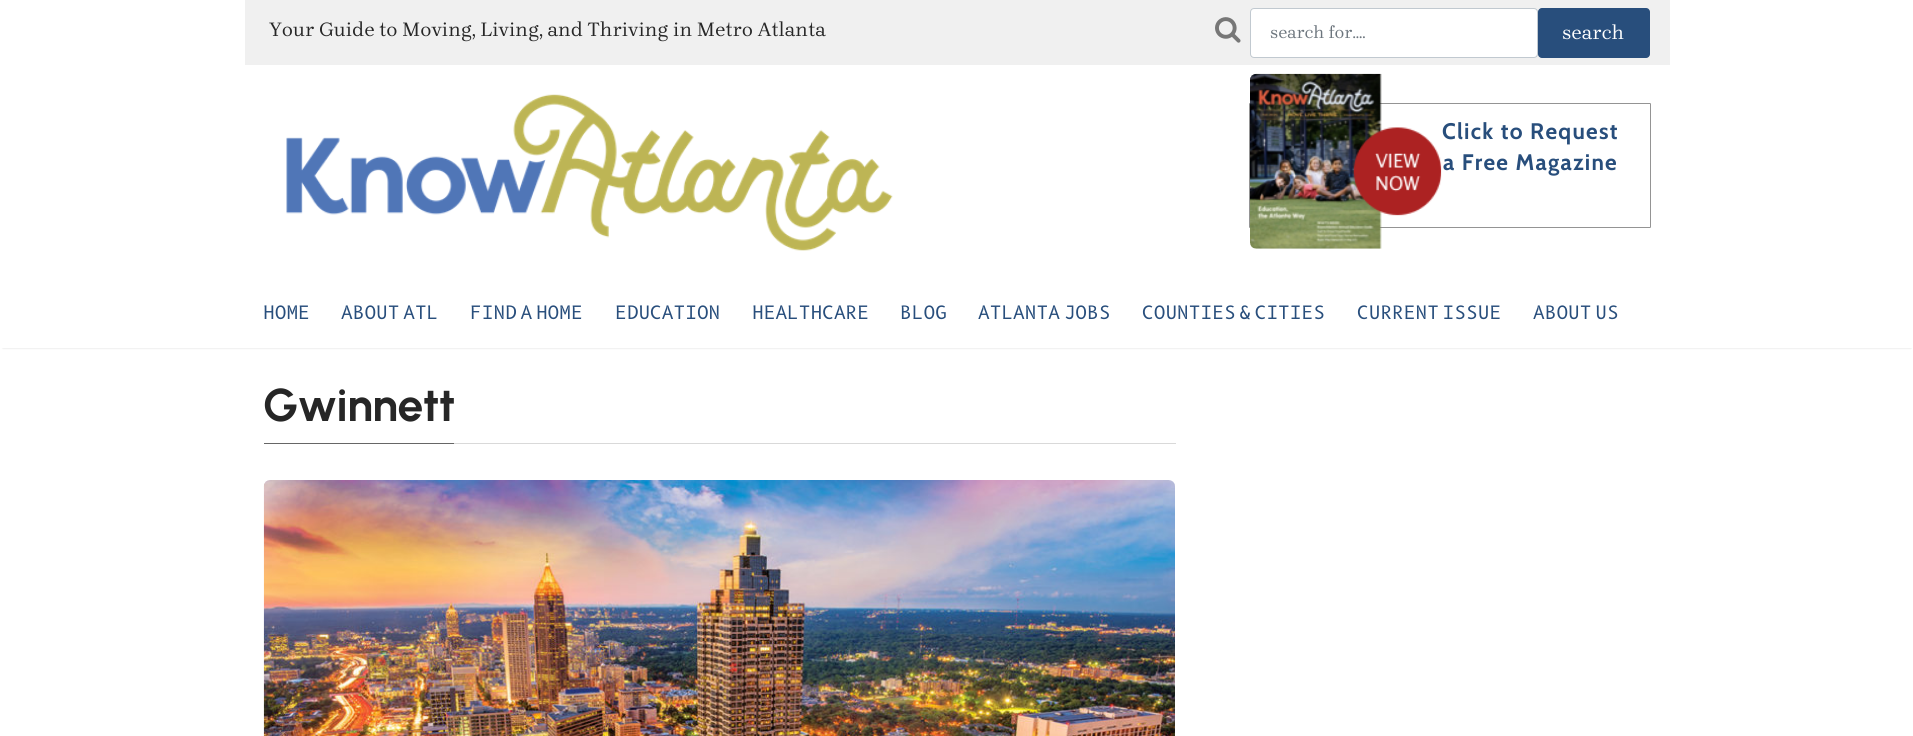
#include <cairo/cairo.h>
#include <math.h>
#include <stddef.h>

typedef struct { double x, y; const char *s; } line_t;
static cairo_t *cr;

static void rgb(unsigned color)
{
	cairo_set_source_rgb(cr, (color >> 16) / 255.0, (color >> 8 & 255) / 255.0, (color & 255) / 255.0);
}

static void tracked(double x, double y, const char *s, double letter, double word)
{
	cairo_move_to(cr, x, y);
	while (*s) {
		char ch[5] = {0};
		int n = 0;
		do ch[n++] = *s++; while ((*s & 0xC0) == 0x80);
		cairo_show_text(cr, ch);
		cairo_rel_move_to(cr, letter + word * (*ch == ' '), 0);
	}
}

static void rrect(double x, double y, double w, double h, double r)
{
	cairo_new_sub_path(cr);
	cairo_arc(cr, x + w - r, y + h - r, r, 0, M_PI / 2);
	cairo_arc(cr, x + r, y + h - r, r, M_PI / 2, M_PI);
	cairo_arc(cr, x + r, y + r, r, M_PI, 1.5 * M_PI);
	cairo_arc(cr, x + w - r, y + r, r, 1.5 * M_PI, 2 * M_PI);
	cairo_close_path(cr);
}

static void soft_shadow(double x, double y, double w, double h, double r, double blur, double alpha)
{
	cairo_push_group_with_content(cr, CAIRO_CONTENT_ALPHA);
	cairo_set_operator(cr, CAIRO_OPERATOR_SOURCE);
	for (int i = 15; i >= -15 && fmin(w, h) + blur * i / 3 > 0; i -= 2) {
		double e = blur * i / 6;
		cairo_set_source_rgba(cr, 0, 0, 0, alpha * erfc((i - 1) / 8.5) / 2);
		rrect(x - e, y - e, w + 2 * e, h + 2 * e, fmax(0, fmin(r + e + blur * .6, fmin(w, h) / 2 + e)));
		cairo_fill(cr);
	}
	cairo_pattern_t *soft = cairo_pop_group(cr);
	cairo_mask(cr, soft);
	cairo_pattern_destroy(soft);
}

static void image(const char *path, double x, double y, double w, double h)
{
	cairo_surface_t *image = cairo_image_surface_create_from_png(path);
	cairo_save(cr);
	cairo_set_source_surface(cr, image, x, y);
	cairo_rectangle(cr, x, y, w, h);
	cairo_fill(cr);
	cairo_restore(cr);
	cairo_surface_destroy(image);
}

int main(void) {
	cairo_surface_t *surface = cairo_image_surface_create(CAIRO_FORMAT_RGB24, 1913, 736);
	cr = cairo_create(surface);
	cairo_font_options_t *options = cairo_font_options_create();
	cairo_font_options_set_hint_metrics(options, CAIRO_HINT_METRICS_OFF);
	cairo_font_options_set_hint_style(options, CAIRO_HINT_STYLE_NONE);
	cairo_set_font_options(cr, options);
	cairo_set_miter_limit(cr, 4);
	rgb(0xffffff);
	cairo_paint(cr);
	rgb(0xf0f0f0);
	cairo_rectangle(cr, 245, 0, 1425, 65);
	cairo_fill(cr);
	image("img/1.png", 1215, 17, 26, 26);
	rgb(0xffffff);
	rrect(1250.5, 8.5, 287, 49, 3.5);
	cairo_fill_preserve(cr);
	rgb(0xc1c9d0);
	cairo_set_line_width(cr, 1);
	cairo_stroke(cr);
	rgb(0x284e7c);
	rrect(1538, 8, 112, 50, 4);
	cairo_fill(cr);
	cairo_save(cr);
	cairo_set_fill_rule(cr, CAIRO_FILL_RULE_EVEN_ODD);
	cairo_new_path(cr);
	cairo_move_to(cr, 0, 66);
	cairo_line_to(cr, 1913, 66);
	cairo_line_to(cr, 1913, 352);
	cairo_line_to(cr, 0, 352);
	cairo_close_path(cr);
	cairo_move_to(cr, 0, 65);
	cairo_line_to(cr, 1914, 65);
	cairo_line_to(cr, 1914, 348);
	cairo_line_to(cr, 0, 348);
	cairo_close_path(cr);
	cairo_clip(cr);
	rgb(0x000000);
	soft_shadow(3, 70, 1908, 278, 0, 1, 0.15);
	cairo_restore(cr);
	image("img/2.png", 286, 94, 607, 157);
	rrect(1249.5, 103.5, 401, 124, 0.5);
	rgb(0x949494);
	cairo_stroke(cr);
	image("img/3.png", 1250, 73, 192, 176);
	rgb(0xd9d9d9);
	cairo_rectangle(cr, 454, 443, 722, 1);
	cairo_fill(cr);
	rgb(0x666666);
	cairo_rectangle(cr, 264, 443, 190, 1);
	cairo_fill(cr);
	image("img/4.png", 263, 480, 912, 256);
	cairo_select_font_face(cr, "Brygada 1918", CAIRO_FONT_SLANT_NORMAL, CAIRO_FONT_WEIGHT_NORMAL);
	cairo_set_font_size(cr, 20);
	rgb(0x262626);
	cairo_move_to(cr, 269, 36);
	cairo_show_text(cr, "Your Guide to Moving, Living, and Thriving in Metro Atlanta");
	cairo_set_font_size(cr, 17.5);
	rgb(0x6c757d);
	cairo_move_to(cr, 1270, 38);
	cairo_show_text(cr, "search for....");
	cairo_set_font_size(cr, 20);
	rgb(0xffffff);
	cairo_move_to(cr, 1562, 39);
	cairo_show_text(cr, "search");
	cairo_select_font_face(cr, "Cabin", CAIRO_FONT_SLANT_NORMAL, CAIRO_FONT_WEIGHT_BOLD);
	cairo_set_font_size(cr, 22.5);
	rgb(0x284e7c);
	tracked(1442, 139, "Click to Request", 1.25, 0);
	tracked(1443, 170, "a Free Magazine", 1.25, 0);
	cairo_select_font_face(cr, "B612 Mono", CAIRO_FONT_SLANT_NORMAL, CAIRO_FONT_WEIGHT_NORMAL);
	cairo_set_font_size(cr, 18);
	cairo_move_to(cr, 263, 319);
	cairo_show_text(cr, "HOME");
	tracked(341, 319, "ABOUT ATL", 0, -8);
	tracked(470, 319, "FIND A HOME", 0, -8);
	{
		static const line_t items[] = {
			{615, 319, "EDUCATION"},
			{752, 319, "HEALTHCARE"},
			{900, 319, "BLOG"},
		};
		for (size_t i = 0; i < sizeof items / sizeof *items; i++) {
			cairo_move_to(cr, items[i].x, items[i].y);
			cairo_show_text(cr, items[i].s);
		}
	}
	{
		static const line_t items[] = {
			{978, 319, "ATLANTA JOBS"},
			{1142, 319, "COUNTIES & CITIES"},
			{1357, 319, "CURRENT ISSUE"},
			{1533, 319, "ABOUT US"},
		};
		for (size_t i = 0; i < sizeof items / sizeof *items; i++) {
			tracked(items[i].x, items[i].y, items[i].s, 0, -8);
		}
	}
	cairo_select_font_face(cr, "Urbanist", CAIRO_FONT_SLANT_NORMAL, CAIRO_FONT_WEIGHT_BOLD);
	cairo_set_font_size(cr, 46);
	rgb(0x262626);
	tracked(263, 421, "Gwinnett", -0.5, 0);
	cairo_surface_write_to_png(surface, "page.png");
	cairo_font_options_destroy(options);
	cairo_destroy(cr);
	cairo_surface_destroy(surface);
	return 0;
}
